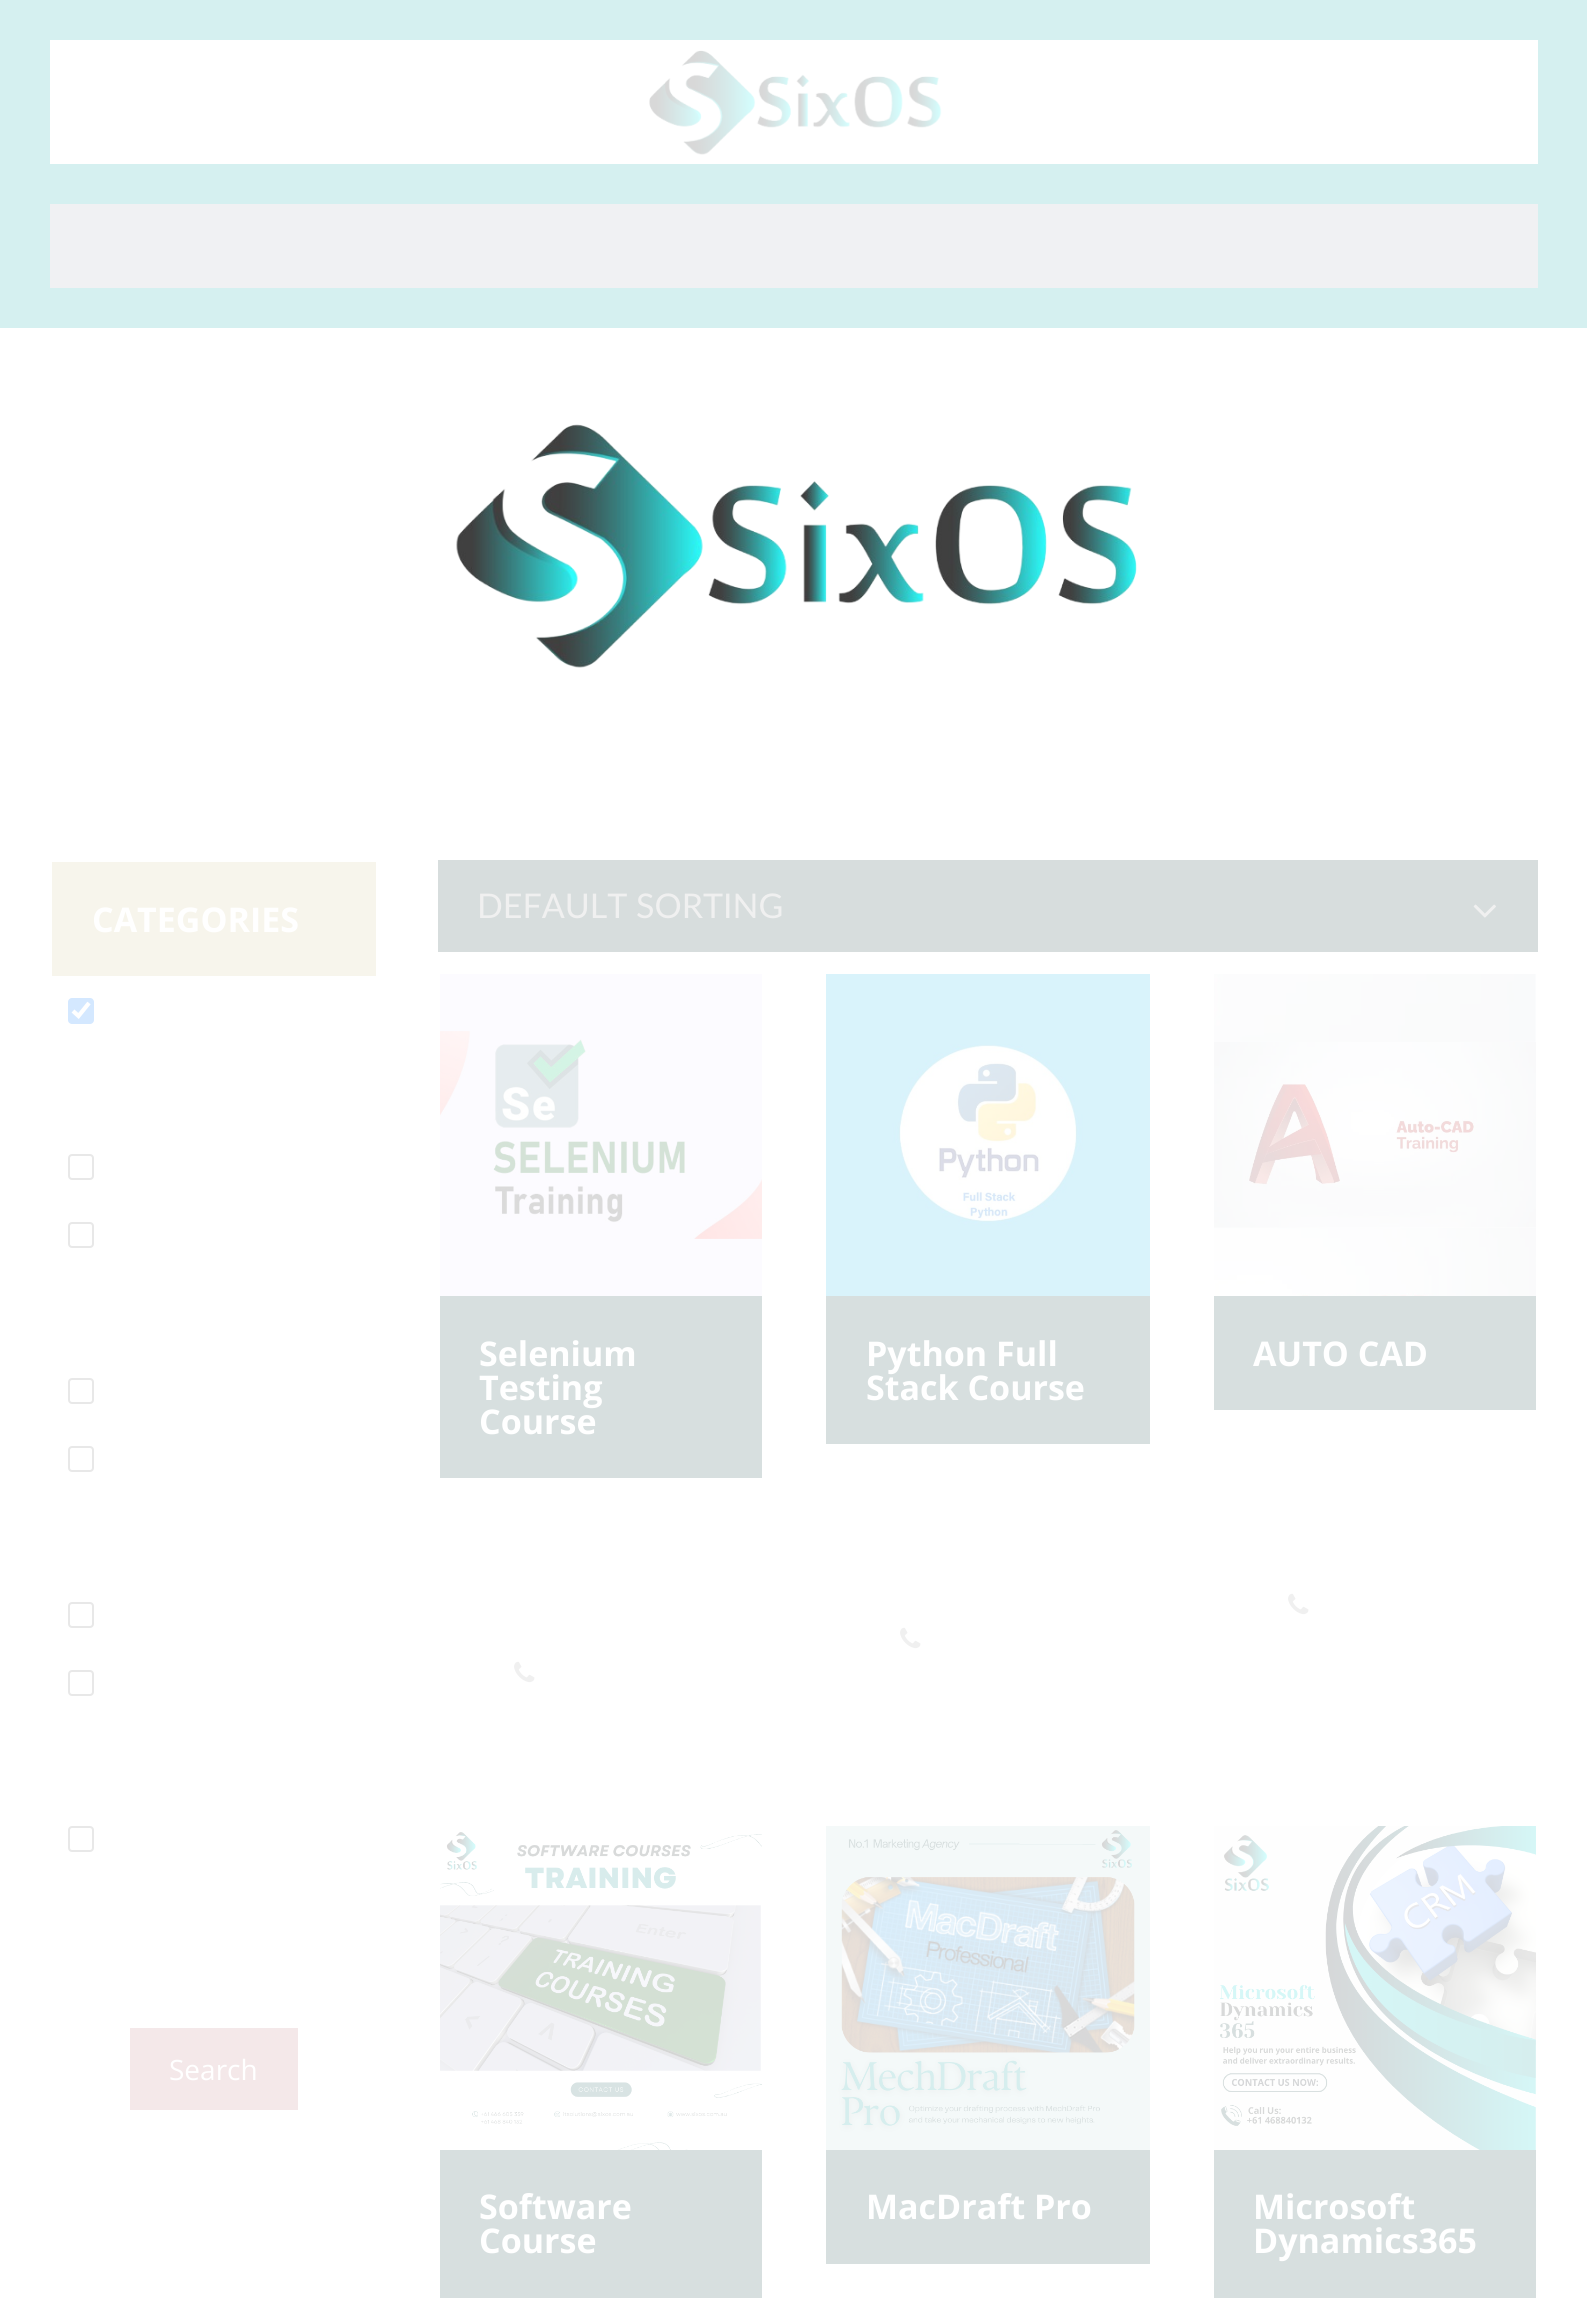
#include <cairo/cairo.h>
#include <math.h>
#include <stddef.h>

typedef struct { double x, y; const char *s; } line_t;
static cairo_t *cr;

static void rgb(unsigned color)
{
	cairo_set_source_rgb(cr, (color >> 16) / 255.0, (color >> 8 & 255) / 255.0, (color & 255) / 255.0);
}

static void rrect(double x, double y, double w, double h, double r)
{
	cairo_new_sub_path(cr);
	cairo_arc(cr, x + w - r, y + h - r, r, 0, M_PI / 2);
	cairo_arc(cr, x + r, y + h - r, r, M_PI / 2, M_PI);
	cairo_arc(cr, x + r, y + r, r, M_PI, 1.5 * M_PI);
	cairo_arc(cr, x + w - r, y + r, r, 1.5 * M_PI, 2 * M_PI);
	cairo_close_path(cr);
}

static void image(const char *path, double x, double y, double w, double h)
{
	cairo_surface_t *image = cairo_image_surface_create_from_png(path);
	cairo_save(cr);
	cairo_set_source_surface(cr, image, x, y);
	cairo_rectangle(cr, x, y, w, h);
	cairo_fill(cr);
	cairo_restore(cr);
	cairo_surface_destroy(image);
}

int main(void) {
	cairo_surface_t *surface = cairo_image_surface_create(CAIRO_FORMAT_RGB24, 1587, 2324);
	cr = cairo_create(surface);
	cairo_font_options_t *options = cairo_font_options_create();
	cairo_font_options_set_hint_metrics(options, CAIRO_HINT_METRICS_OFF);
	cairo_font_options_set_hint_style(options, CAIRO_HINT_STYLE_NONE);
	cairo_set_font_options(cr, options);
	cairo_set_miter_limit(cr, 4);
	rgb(0xffffff);
	cairo_paint(cr);
	image("img/1.png", 456, 424, 681, 244);
	rgb(0xd5f0f0);
	cairo_rectangle(cr, 0, 0, 1587, 328);
	cairo_fill(cr);
	rgb(0xffffff);
	cairo_rectangle(cr, 50, 40, 1488, 124);
	cairo_fill(cr);
	image("img/2.png", 649, 50, 293, 105);
	rgb(0xf0f1f3);
	cairo_rectangle(cr, 50, 204, 1488, 84);
	cairo_fill(cr);
	rgb(0xf7f5ec);
	cairo_rectangle(cr, 52, 862, 324, 114);
	cairo_fill(cr);
	rgb(0xd4e8ff);
	rrect(68, 998, 26, 26, 4);
	cairo_fill(cr);
	cairo_new_path(cr);
	cairo_move_to(cr, 73, 1011);
	cairo_line_to(cr, 78.5, 1016);
	cairo_line_to(cr, 89, 1003);
	rgb(0xffffff);
	cairo_set_line_width(cr, 4.2);
	cairo_stroke(cr);
	rrect(69, 1155, 24, 24, 3);
	rgb(0xe8e8e8);
	cairo_set_line_width(cr, 2);
	cairo_stroke(cr);
	rrect(69, 1223, 24, 24, 3);
	cairo_stroke(cr);
	rrect(69, 1379, 24, 24, 3);
	cairo_stroke(cr);
	rrect(69, 1447, 24, 24, 3);
	cairo_stroke(cr);
	rrect(69, 1603, 24, 24, 3);
	cairo_stroke(cr);
	rrect(69, 1671, 24, 24, 3);
	cairo_stroke(cr);
	rrect(69, 1827, 24, 24, 3);
	cairo_stroke(cr);
	rgb(0xf4e8e9);
	cairo_rectangle(cr, 130, 2028, 168, 82);
	cairo_fill(cr);
	rgb(0xd7dddd);
	cairo_rectangle(cr, 438, 860, 1100, 92);
	cairo_fill(cr);
	image("img/3.png", 1473, 904, 23, 14);
	image("img/4.png", 440, 974, 322, 322);
	rgb(0xd7dfdf);
	cairo_rectangle(cr, 440, 1296, 322, 182);
	cairo_fill(cr);
	image("img/5.png", 514, 1661, 21, 22);
	image("img/6.png", 826, 974, 324, 322);
	cairo_rectangle(cr, 826, 1296, 324, 148);
	cairo_fill(cr);
	image("img/5.png", 900, 1627, 21, 22);
	image("img/7.png", 1214, 974, 322, 322);
	cairo_rectangle(cr, 1214, 1296, 322, 114);
	cairo_fill(cr);
	image("img/5.png", 1288, 1593, 21, 22);
	image("img/8.png", 440, 1832, 322, 318);
	cairo_rectangle(cr, 440, 2150, 322, 148);
	cairo_fill(cr);
	image("img/9.png", 826, 1826, 324, 324);
	cairo_rectangle(cr, 826, 2150, 324, 114);
	cairo_fill(cr);
	image("img/10.png", 1214, 1826, 322, 324);
	cairo_rectangle(cr, 1214, 2150, 322, 148);
	cairo_fill(cr);
	cairo_select_font_face(cr, "Open Sans", CAIRO_FONT_SLANT_NORMAL, CAIRO_FONT_WEIGHT_BOLD);
	cairo_set_font_size(cr, 34);
	rgb(0xffffff);
	cairo_move_to(cr, 92, 932);
	cairo_show_text(cr, "CATEGORIES");
	cairo_select_font_face(cr, "Open Sans", CAIRO_FONT_SLANT_NORMAL, CAIRO_FONT_WEIGHT_NORMAL);
	cairo_set_font_size(cr, 28);
	cairo_move_to(cr, 169, 2080);
	cairo_show_text(cr, "Search");
	cairo_select_font_face(cr, "Lato", CAIRO_FONT_SLANT_NORMAL, CAIRO_FONT_WEIGHT_NORMAL);
	cairo_set_font_size(cr, 34);
	rgb(0xf0f0f0);
	cairo_move_to(cr, 477, 918);
	cairo_show_text(cr, "DEFAULT SORTING");
	cairo_select_font_face(cr, "Open Sans", CAIRO_FONT_SLANT_NORMAL, CAIRO_FONT_WEIGHT_BOLD);
	rgb(0xffffff);
	{
		static const line_t items[] = {
			{479, 1366, "Selenium"},
			{479, 1400, "Testing"},
			{479, 1434, "Course"},
			{866, 1366, "Python Full"},
			{866, 1400, "Stack Course"},
			{1253, 1366, "AUTO CAD"},
			{479, 2219, "Software"},
			{479, 2253, "Course"},
			{866, 2219, "MacDraft Pro"},
			{1253, 2219, "Microsoft"},
			{1253, 2253, "Dynamics365"},
		};
		for (size_t i = 0; i < sizeof items / sizeof *items; i++) {
			cairo_move_to(cr, items[i].x, items[i].y);
			cairo_show_text(cr, items[i].s);
		}
	}
	cairo_surface_write_to_png(surface, "page.png");
	cairo_font_options_destroy(options);
	cairo_destroy(cr);
	cairo_surface_destroy(surface);
	return 0;
}
